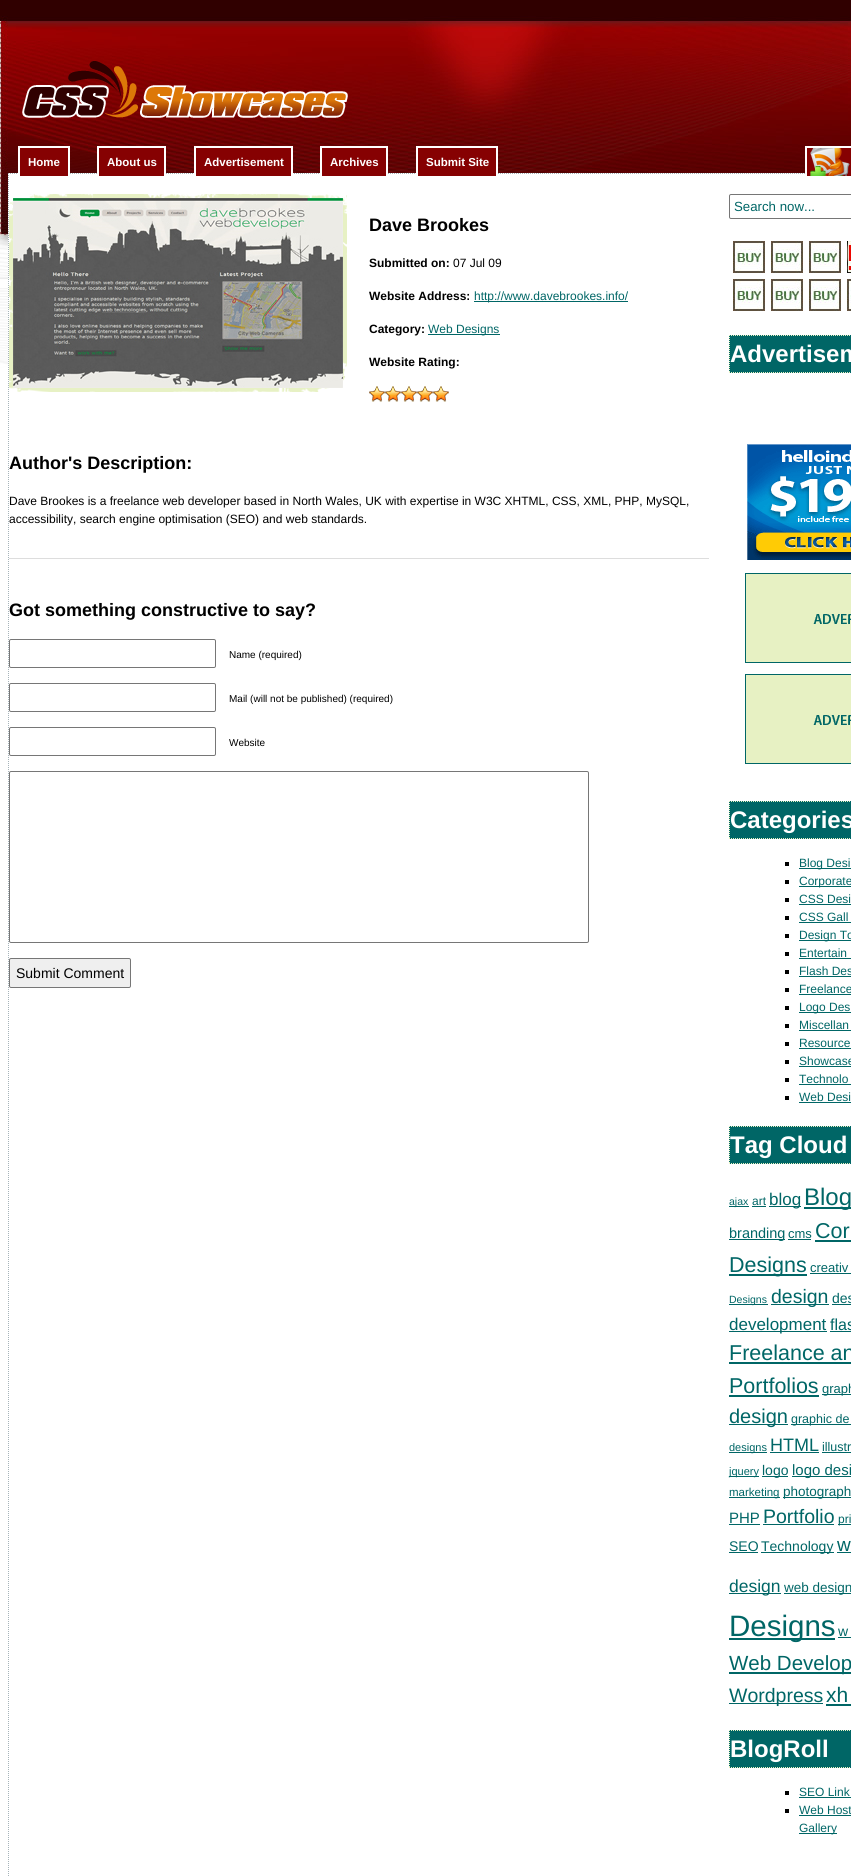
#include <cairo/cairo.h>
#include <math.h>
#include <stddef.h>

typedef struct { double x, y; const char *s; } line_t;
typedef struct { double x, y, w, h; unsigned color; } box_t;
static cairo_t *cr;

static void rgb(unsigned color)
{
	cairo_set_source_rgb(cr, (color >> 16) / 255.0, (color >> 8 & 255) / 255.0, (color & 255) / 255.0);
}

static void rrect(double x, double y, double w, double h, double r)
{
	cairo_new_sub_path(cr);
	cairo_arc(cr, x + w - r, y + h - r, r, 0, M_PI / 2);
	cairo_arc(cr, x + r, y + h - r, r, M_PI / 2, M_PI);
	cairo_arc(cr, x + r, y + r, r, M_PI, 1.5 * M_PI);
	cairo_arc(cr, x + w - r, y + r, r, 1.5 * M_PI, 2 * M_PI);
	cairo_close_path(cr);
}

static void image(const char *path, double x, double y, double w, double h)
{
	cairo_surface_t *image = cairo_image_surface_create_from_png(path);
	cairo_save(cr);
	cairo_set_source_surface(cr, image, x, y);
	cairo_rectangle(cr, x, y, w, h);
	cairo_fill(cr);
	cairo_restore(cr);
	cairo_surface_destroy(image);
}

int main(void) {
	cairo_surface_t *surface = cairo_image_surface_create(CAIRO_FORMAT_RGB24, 851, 1876);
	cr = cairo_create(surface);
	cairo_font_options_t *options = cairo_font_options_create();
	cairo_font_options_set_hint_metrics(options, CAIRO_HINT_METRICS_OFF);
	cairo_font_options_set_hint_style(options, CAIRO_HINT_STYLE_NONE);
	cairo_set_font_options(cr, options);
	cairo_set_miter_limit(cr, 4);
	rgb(0xffffff);
	cairo_paint(cr);
	image("img/1.png", 0, 0, 851, 431);
	image("img/2.png", 22, 61, 326, 57);
	rgb(0xffffff);
	cairo_rectangle(cr, 8, 173, 843, 258);
	cairo_fill(cr);
	cairo_new_path(cr);
	cairo_move_to(cr, 8, 173.5);
	cairo_line_to(cr, 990, 173.5);
	rgb(0xa6b3b9);
	cairo_set_line_width(cr, 1);
	cairo_set_dash(cr, (double[]){1, 1}, 2, 0);
	cairo_stroke(cr);
	rgb(0x860102);
	cairo_rectangle(cr, 19, 147, 50, 30);
	cairo_fill_preserve(cr);
	rgb(0xffffff);
	cairo_set_line_width(cr, 2);
	cairo_set_dash(cr, NULL, 0, 0);
	cairo_stroke(cr);
	rgb(0x860102);
	cairo_rectangle(cr, 98, 147, 67, 30);
	cairo_fill_preserve(cr);
	rgb(0xffffff);
	cairo_stroke(cr);
	rgb(0x860102);
	cairo_rectangle(cr, 195, 147, 97, 30);
	cairo_fill_preserve(cr);
	rgb(0xffffff);
	cairo_stroke(cr);
	rgb(0x860102);
	cairo_rectangle(cr, 321, 147, 66, 30);
	cairo_fill_preserve(cr);
	rgb(0xffffff);
	cairo_stroke(cr);
	rgb(0x860102);
	cairo_rectangle(cr, 417, 147, 80, 30);
	cairo_fill_preserve(cr);
	rgb(0xffffff);
	cairo_stroke(cr);
	rgb(0x860102);
	cairo_rectangle(cr, 807, 148, 44, 28);
	cairo_fill(cr);
	image("img/3.png", 810, 148, 40, 28);
	cairo_rectangle(cr, 806, 147, 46, 30);
	rgb(0xffffff);
	cairo_stroke(cr);
	cairo_new_path(cr);
	cairo_move_to(cr, 8.5, 173);
	cairo_line_to(cr, 8.5, 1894);
	rgb(0xa6b3b9);
	cairo_set_line_width(cr, 1);
	cairo_set_dash(cr, (double[]){1, 1}, 2, 0);
	cairo_stroke(cr);
	image("img/4.png", 9, 194, 338, 198);
	image("img/5.png", 13, 198, 330, 190);
	rgb(0x006666);
	cairo_rectangle(cr, 474, 301, 154, 1);
	cairo_fill(cr);
	cairo_rectangle(cr, 428, 334, 72, 1);
	cairo_fill(cr);
	image("img/6.png", 369, 386, 16, 16);
	image("img/6.png", 385, 386, 16, 16);
	image("img/6.png", 401, 386, 16, 16);
	image("img/6.png", 417, 386, 16, 16);
	image("img/6.png", 433, 386, 16, 16);
	rgb(0xdddddd);
	cairo_rectangle(cr, 9, 558, 700, 1);
	cairo_fill(cr);
	rrect(9.5, 639.5, 206, 28, 1.5);
	rgb(0x767676);
	cairo_set_dash(cr, NULL, 0, 0);
	cairo_stroke(cr);
	rrect(9.5, 683.5, 206, 28, 1.5);
	cairo_stroke(cr);
	rrect(9.5, 727.5, 206, 28, 1.5);
	cairo_stroke(cr);
	rrect(9.5, 771.5, 579, 171, 1.5);
	cairo_stroke(cr);
	rgb(0xefefef);
	rrect(9.5, 958.5, 121, 29, 1.5);
	cairo_fill_preserve(cr);
	rgb(0x767676);
	cairo_stroke(cr);
	rrect(729.5, 194.5, 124, 24, 1.5);
	cairo_stroke(cr);
	image("img/7.png", 733, 241, 32, 32);
	image("img/7.png", 771, 241, 32, 32);
	image("img/7.png", 809, 241, 32, 32);
	image("img/8.png", 847, 241, 4, 32);
	image("img/7.png", 733, 279, 32, 32);
	image("img/7.png", 771, 279, 32, 32);
	image("img/7.png", 809, 279, 32, 32);
	image("img/9.png", 847, 279, 4, 32);
	rgb(0x006666);
	cairo_rectangle(cr, 729, 335, 122, 38);
	cairo_fill(cr);
	cairo_new_path(cr);
	cairo_move_to(cr, 729, 335.5);
	cairo_line_to(cr, 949, 335.5);
	rgb(0xe7f1c3);
	cairo_set_dash(cr, (double[]){1, 1}, 2, 0);
	cairo_stroke(cr);
	cairo_new_path(cr);
	cairo_move_to(cr, 729, 372.5);
	cairo_line_to(cr, 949, 372.5);
	cairo_stroke(cr);
	cairo_new_path(cr);
	cairo_move_to(cr, 729.5, 335);
	cairo_line_to(cr, 729.5, 373);
	cairo_stroke(cr);
	image("img/10.png", 747, 444, 104, 116);
	image("img/11.png", 745, 573, 106, 90);
	image("img/11.png", 745, 674, 106, 90);
	rgb(0x006666);
	cairo_rectangle(cr, 729, 801, 122, 38);
	cairo_fill(cr);
	cairo_new_path(cr);
	cairo_move_to(cr, 729, 801.5);
	cairo_line_to(cr, 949, 801.5);
	rgb(0xe7f1c3);
	cairo_stroke(cr);
	cairo_new_path(cr);
	cairo_move_to(cr, 729, 838.5);
	cairo_line_to(cr, 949, 838.5);
	cairo_stroke(cr);
	cairo_new_path(cr);
	cairo_move_to(cr, 729.5, 801);
	cairo_line_to(cr, 729.5, 839);
	cairo_stroke(cr);
	{
		static const box_t items[] = {
			{785, 862, 4, 4, 0x000000},
			{799, 868, 52, 1, 0x006666},
			{785, 880, 4, 4, 0x000000},
			{799, 886, 52, 1, 0x006666},
			{785, 898, 4, 4, 0x000000},
			{799, 904, 52, 1, 0x006666},
			{785, 916, 4, 4, 0x000000},
			{799, 922, 52, 1, 0x006666},
			{785, 934, 4, 4, 0x000000},
			{799, 940, 52, 1, 0x006666},
			{785, 952, 4, 4, 0x000000},
			{799, 958, 52, 1, 0x006666},
			{785, 970, 4, 4, 0x000000},
			{799, 976, 52, 1, 0x006666},
			{785, 988, 4, 4, 0x000000},
			{799, 994, 52, 1, 0x006666},
			{785, 1006, 4, 4, 0x000000},
			{799, 1012, 52, 1, 0x006666},
			{785, 1024, 4, 4, 0x000000},
			{799, 1030, 52, 1, 0x006666},
			{785, 1042, 4, 4, 0x000000},
			{799, 1048, 52, 1, 0x006666},
			{785, 1060, 4, 4, 0x000000},
			{799, 1066, 52, 1, 0x006666},
			{785, 1078, 4, 4, 0x000000},
			{799, 1084, 52, 1, 0x006666},
			{785, 1096, 4, 4, 0x000000},
			{799, 1102, 52, 1, 0x006666},
			{729, 1126, 122, 38, 0x006666},
		};
		for (size_t i = 0; i < sizeof items / sizeof *items; i++) {
			rgb(items[i].color);
			cairo_rectangle(cr, items[i].x, items[i].y, items[i].w, items[i].h);
			cairo_fill(cr);
		}
	}
	cairo_new_path(cr);
	cairo_move_to(cr, 729, 1126.5);
	cairo_line_to(cr, 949, 1126.5);
	rgb(0xe7f1c3);
	cairo_stroke(cr);
	cairo_new_path(cr);
	cairo_move_to(cr, 729, 1163.5);
	cairo_line_to(cr, 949, 1163.5);
	cairo_stroke(cr);
	cairo_new_path(cr);
	cairo_move_to(cr, 729.5, 1126);
	cairo_line_to(cr, 729.5, 1164);
	cairo_stroke(cr);
	{
		static const box_t items[] = {
			{729, 1206, 20, 1, 0x006666},
			{752, 1206, 14, 1, 0x006666},
			{769, 1206, 32, 1, 0x006666},
			{804, 1207, 47, 2, 0x006666},
			{729, 1239, 56, 1, 0x006666},
			{788, 1239, 23, 1, 0x006666},
			{815, 1240, 36, 2, 0x006666},
			{729, 1274, 78, 2, 0x006666},
			{810, 1273, 41, 1, 0x006666},
			{729, 1304, 39, 1, 0x006666},
			{771, 1304, 58, 1, 0x006666},
			{832, 1304, 19, 1, 0x006666},
			{729, 1331, 98, 1, 0x006666},
			{830, 1331, 21, 1, 0x006666},
			{729, 1362, 122, 2, 0x006666},
			{729, 1395, 90, 2, 0x006666},
			{822, 1394, 29, 1, 0x006666},
			{729, 1424, 59, 1, 0x006666},
			{791, 1424, 60, 1, 0x006666},
			{729, 1452, 38, 1, 0x006666},
			{770, 1452, 49, 1, 0x006666},
			{822, 1452, 29, 1, 0x006666},
			{729, 1476, 30, 1, 0x006666},
			{762, 1476, 26, 1, 0x006666},
			{792, 1476, 59, 1, 0x006666},
			{729, 1497, 51, 1, 0x006666},
			{783, 1497, 68, 1, 0x006666},
			{729, 1524, 31, 1, 0x006666},
			{763, 1524, 71, 1, 0x006666},
			{838, 1524, 13, 1, 0x006666},
			{729, 1552, 29, 1, 0x006666},
			{761, 1552, 73, 1, 0x006666},
			{837, 1552, 14, 1, 0x006666},
			{729, 1593, 52, 1, 0x006666},
			{784, 1593, 67, 1, 0x006666},
			{729, 1638, 106, 2, 0x006666},
			{838, 1637, 13, 1, 0x006666},
			{729, 1672, 122, 2, 0x006666},
			{729, 1703, 94, 1, 0x006666},
			{826, 1704, 25, 2, 0x006666},
			{729, 1730, 122, 38, 0x006666},
		};
		for (size_t i = 0; i < sizeof items / sizeof *items; i++) {
			rgb(items[i].color);
			cairo_rectangle(cr, items[i].x, items[i].y, items[i].w, items[i].h);
			cairo_fill(cr);
		}
	}
	cairo_new_path(cr);
	cairo_move_to(cr, 729, 1730.5);
	cairo_line_to(cr, 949, 1730.5);
	rgb(0xe7f1c3);
	cairo_stroke(cr);
	cairo_new_path(cr);
	cairo_move_to(cr, 729, 1767.5);
	cairo_line_to(cr, 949, 1767.5);
	cairo_stroke(cr);
	cairo_new_path(cr);
	cairo_move_to(cr, 729.5, 1730);
	cairo_line_to(cr, 729.5, 1768);
	cairo_stroke(cr);
	{
		static const box_t items[] = {
			{785, 1791, 4, 4, 0x000000},
			{799, 1797, 52, 1, 0x006666},
			{785, 1809, 4, 4, 0x000000},
			{799, 1815, 52, 1, 0x006666},
			{799, 1833, 38, 1, 0x006666},
		};
		for (size_t i = 0; i < sizeof items / sizeof *items; i++) {
			rgb(items[i].color);
			cairo_rectangle(cr, items[i].x, items[i].y, items[i].w, items[i].h);
			cairo_fill(cr);
		}
	}
	cairo_select_font_face(cr, "Liberation Sans", CAIRO_FONT_SLANT_NORMAL, CAIRO_FONT_WEIGHT_BOLD);
	cairo_set_font_size(cr, 11.5);
	rgb(0xffffff);
	{
		static const line_t items[] = {
			{28, 166, "Home"},
			{107, 166, "About us"},
			{204, 166, "Advertisement"},
			{330, 166, "Archives"},
			{426, 166, "Submit Site"},
		};
		for (size_t i = 0; i < sizeof items / sizeof *items; i++) {
			cairo_move_to(cr, items[i].x, items[i].y);
			cairo_show_text(cr, items[i].s);
		}
	}
	cairo_set_font_size(cr, 18);
	rgb(0x000000);
	cairo_move_to(cr, 369, 231);
	cairo_show_text(cr, "Dave Brookes");
	cairo_set_font_size(cr, 12);
	cairo_move_to(cr, 369, 267);
	cairo_show_text(cr, "Submitted on:");
	cairo_select_font_face(cr, "Liberation Sans", CAIRO_FONT_SLANT_NORMAL, CAIRO_FONT_WEIGHT_NORMAL);
	cairo_move_to(cr, 453, 267);
	cairo_show_text(cr, "07 Jul 09");
	cairo_select_font_face(cr, "Liberation Sans", CAIRO_FONT_SLANT_NORMAL, CAIRO_FONT_WEIGHT_BOLD);
	cairo_move_to(cr, 369, 300);
	cairo_show_text(cr, "Website Address:");
	cairo_select_font_face(cr, "Liberation Sans", CAIRO_FONT_SLANT_NORMAL, CAIRO_FONT_WEIGHT_NORMAL);
	rgb(0x006666);
	cairo_move_to(cr, 474, 300);
	cairo_show_text(cr, "http://www.davebrookes.info/");
	cairo_select_font_face(cr, "Liberation Sans", CAIRO_FONT_SLANT_NORMAL, CAIRO_FONT_WEIGHT_BOLD);
	rgb(0x000000);
	cairo_move_to(cr, 369, 333);
	cairo_show_text(cr, "Category:");
	cairo_select_font_face(cr, "Liberation Sans", CAIRO_FONT_SLANT_NORMAL, CAIRO_FONT_WEIGHT_NORMAL);
	rgb(0x006666);
	cairo_move_to(cr, 428, 333);
	cairo_show_text(cr, "Web Designs");
	cairo_select_font_face(cr, "Liberation Sans", CAIRO_FONT_SLANT_NORMAL, CAIRO_FONT_WEIGHT_BOLD);
	rgb(0x000000);
	cairo_move_to(cr, 369, 366);
	cairo_show_text(cr, "Website Rating:");
	cairo_set_font_size(cr, 18);
	cairo_move_to(cr, 9, 469);
	cairo_show_text(cr, "Author's Description:");
	cairo_select_font_face(cr, "Liberation Sans", CAIRO_FONT_SLANT_NORMAL, CAIRO_FONT_WEIGHT_NORMAL);
	cairo_set_font_size(cr, 12);
	cairo_move_to(cr, 9, 505);
	cairo_show_text(cr, "Dave Brookes is a freelance web developer based in North Wales, UK with expertise in W3C XHTML, CSS, XML, PHP, MySQL,");
	cairo_move_to(cr, 9, 523);
	cairo_show_text(cr, "accessibility, search engine optimisation (SEO) and web standards.");
	cairo_select_font_face(cr, "Liberation Sans", CAIRO_FONT_SLANT_NORMAL, CAIRO_FONT_WEIGHT_BOLD);
	cairo_set_font_size(cr, 18);
	cairo_move_to(cr, 9, 616);
	cairo_show_text(cr, "Got something constructive to say?");
	cairo_select_font_face(cr, "Liberation Sans", CAIRO_FONT_SLANT_NORMAL, CAIRO_FONT_WEIGHT_NORMAL);
	cairo_set_font_size(cr, 10);
	{
		static const line_t items[] = {
			{229, 658, "Name (required)"},
			{229, 702, "Mail (will not be published) (required)"},
			{229, 746, "Website"},
		};
		for (size_t i = 0; i < sizeof items / sizeof *items; i++) {
			cairo_move_to(cr, items[i].x, items[i].y);
			cairo_show_text(cr, items[i].s);
		}
	}
	cairo_set_font_size(cr, 14);
	cairo_move_to(cr, 16, 978);
	cairo_show_text(cr, "Submit Comment");
	cairo_set_font_size(cr, 13.25);
	rgb(0x006666);
	cairo_move_to(cr, 734, 211);
	cairo_show_text(cr, "Search now...");
	cairo_select_font_face(cr, "Liberation Sans", CAIRO_FONT_SLANT_NORMAL, CAIRO_FONT_WEIGHT_BOLD);
	cairo_set_font_size(cr, 24);
	rgb(0xffffff);
	cairo_move_to(cr, 730, 362);
	cairo_show_text(cr, "Advertisem");
	cairo_move_to(cr, 730, 828);
	cairo_show_text(cr, "Categories");
	cairo_select_font_face(cr, "Liberation Sans", CAIRO_FONT_SLANT_NORMAL, CAIRO_FONT_WEIGHT_NORMAL);
	cairo_set_font_size(cr, 12);
	rgb(0x006666);
	{
		static const line_t items[] = {
			{799, 867, "Blog Desi"},
			{799, 885, "Corporate"},
			{799, 903, "CSS Desi"},
			{799, 921, "CSS Gall"},
			{799, 939, "Design To"},
			{799, 957, "Entertain"},
			{799, 975, "Flash Des"},
			{799, 993, "Freelance"},
			{799, 1011, "Logo Des"},
			{799, 1029, "Miscellan"},
			{799, 1047, "Resource"},
			{799, 1065, "Showcase"},
			{799, 1083, "Technolo"},
			{799, 1101, "Web Desi"},
		};
		for (size_t i = 0; i < sizeof items / sizeof *items; i++) {
			cairo_move_to(cr, items[i].x, items[i].y);
			cairo_show_text(cr, items[i].s);
		}
	}
	cairo_select_font_face(cr, "Liberation Sans", CAIRO_FONT_SLANT_NORMAL, CAIRO_FONT_WEIGHT_BOLD);
	cairo_set_font_size(cr, 24);
	rgb(0xffffff);
	cairo_move_to(cr, 730, 1153);
	cairo_show_text(cr, "Tag Cloud");
	cairo_select_font_face(cr, "Liberation Sans", CAIRO_FONT_SLANT_NORMAL, CAIRO_FONT_WEIGHT_NORMAL);
	cairo_set_font_size(cr, 10.5);
	rgb(0x006666);
	cairo_move_to(cr, 729, 1205);
	cairo_show_text(cr, "ajax");
	cairo_set_font_size(cr, 12);
	cairo_move_to(cr, 752, 1205);
	cairo_show_text(cr, "art");
	cairo_set_font_size(cr, 17);
	cairo_move_to(cr, 769, 1205);
	cairo_show_text(cr, "blog");
	cairo_set_font_size(cr, 24);
	cairo_move_to(cr, 804, 1205);
	cairo_show_text(cr, "Blog");
	cairo_set_font_size(cr, 14.5);
	cairo_move_to(cr, 729, 1238);
	cairo_show_text(cr, "branding");
	cairo_set_font_size(cr, 13);
	cairo_move_to(cr, 788, 1238);
	cairo_show_text(cr, "cms");
	cairo_set_font_size(cr, 21.5);
	cairo_move_to(cr, 815, 1238);
	cairo_show_text(cr, "Cor");
	cairo_move_to(cr, 729, 1272);
	cairo_show_text(cr, "Designs");
	cairo_set_font_size(cr, 13);
	cairo_move_to(cr, 810, 1272);
	cairo_show_text(cr, "creativ");
	cairo_set_font_size(cr, 10.5);
	cairo_move_to(cr, 729, 1303);
	cairo_show_text(cr, "Designs");
	cairo_set_font_size(cr, 19.5);
	cairo_move_to(cr, 771, 1303);
	cairo_show_text(cr, "design");
	cairo_set_font_size(cr, 14);
	cairo_move_to(cr, 832, 1303);
	cairo_show_text(cr, "des");
	cairo_set_font_size(cr, 17);
	cairo_move_to(cr, 729, 1330);
	cairo_show_text(cr, "development");
	cairo_set_font_size(cr, 16);
	cairo_move_to(cr, 830, 1330);
	cairo_show_text(cr, "flas");
	cairo_set_font_size(cr, 21.5);
	cairo_move_to(cr, 729, 1360);
	cairo_show_text(cr, "Freelance an");
	cairo_move_to(cr, 729, 1393);
	cairo_show_text(cr, "Portfolios");
	cairo_set_font_size(cr, 13);
	cairo_move_to(cr, 822, 1393);
	cairo_show_text(cr, "graph");
	cairo_set_font_size(cr, 20);
	cairo_move_to(cr, 729, 1423);
	cairo_show_text(cr, "design");
	cairo_set_font_size(cr, 12.5);
	cairo_move_to(cr, 791, 1423);
	cairo_show_text(cr, "graphic de");
	cairo_set_font_size(cr, 11);
	cairo_move_to(cr, 729, 1451);
	cairo_show_text(cr, "designs");
	cairo_set_font_size(cr, 18);
	cairo_move_to(cr, 770, 1451);
	cairo_show_text(cr, "HTML");
	cairo_set_font_size(cr, 12.5);
	cairo_move_to(cr, 822, 1451);
	cairo_show_text(cr, "illustr");
	cairo_set_font_size(cr, 11);
	cairo_move_to(cr, 729, 1475);
	cairo_show_text(cr, "jquery");
	cairo_set_font_size(cr, 14);
	cairo_move_to(cr, 762, 1475);
	cairo_show_text(cr, "logo");
	cairo_set_font_size(cr, 15);
	cairo_move_to(cr, 792, 1475);
	cairo_show_text(cr, "logo desi");
	cairo_set_font_size(cr, 11.5);
	cairo_move_to(cr, 729, 1496);
	cairo_show_text(cr, "marketing");
	cairo_set_font_size(cr, 13.5);
	cairo_move_to(cr, 783, 1496);
	cairo_show_text(cr, "photograph");
	cairo_set_font_size(cr, 15);
	cairo_move_to(cr, 729, 1523);
	cairo_show_text(cr, "PHP");
	cairo_set_font_size(cr, 19.5);
	cairo_move_to(cr, 763, 1523);
	cairo_show_text(cr, "Portfolio");
	cairo_set_font_size(cr, 12);
	cairo_move_to(cr, 838, 1523);
	cairo_show_text(cr, "pri");
	cairo_set_font_size(cr, 14);
	cairo_move_to(cr, 729, 1551);
	cairo_show_text(cr, "SEO");
	cairo_move_to(cr, 761, 1551);
	cairo_show_text(cr, "Technology");
	cairo_set_font_size(cr, 19);
	cairo_move_to(cr, 837, 1551);
	cairo_show_text(cr, "w");
	cairo_set_font_size(cr, 17.5);
	cairo_move_to(cr, 729, 1592);
	cairo_show_text(cr, "design");
	cairo_set_font_size(cr, 13.5);
	cairo_move_to(cr, 784, 1592);
	cairo_show_text(cr, "web design");
	cairo_set_font_size(cr, 29.5);
	cairo_move_to(cr, 729, 1636);
	cairo_show_text(cr, "Designs");
	cairo_set_font_size(cr, 14);
	cairo_move_to(cr, 838, 1636);
	cairo_show_text(cr, "w");
	cairo_set_font_size(cr, 20.5);
	cairo_move_to(cr, 729, 1670);
	cairo_show_text(cr, "Web Develop");
	cairo_set_font_size(cr, 19.5);
	cairo_move_to(cr, 729, 1702);
	cairo_show_text(cr, "Wordpress");
	cairo_set_font_size(cr, 21);
	cairo_move_to(cr, 826, 1702);
	cairo_show_text(cr, "xh");
	cairo_select_font_face(cr, "Liberation Sans", CAIRO_FONT_SLANT_NORMAL, CAIRO_FONT_WEIGHT_BOLD);
	cairo_set_font_size(cr, 24);
	rgb(0xffffff);
	cairo_move_to(cr, 730, 1757);
	cairo_show_text(cr, "BlogRoll");
	cairo_select_font_face(cr, "Liberation Sans", CAIRO_FONT_SLANT_NORMAL, CAIRO_FONT_WEIGHT_NORMAL);
	cairo_set_font_size(cr, 12);
	rgb(0x006666);
	{
		static const line_t items[] = {
			{799, 1796, "SEO Link"},
			{799, 1814, "Web Host"},
			{799, 1832, "Gallery"},
		};
		for (size_t i = 0; i < sizeof items / sizeof *items; i++) {
			cairo_move_to(cr, items[i].x, items[i].y);
			cairo_show_text(cr, items[i].s);
		}
	}
	cairo_surface_write_to_png(surface, "page.png");
	cairo_font_options_destroy(options);
	cairo_destroy(cr);
	cairo_surface_destroy(surface);
	return 0;
}
